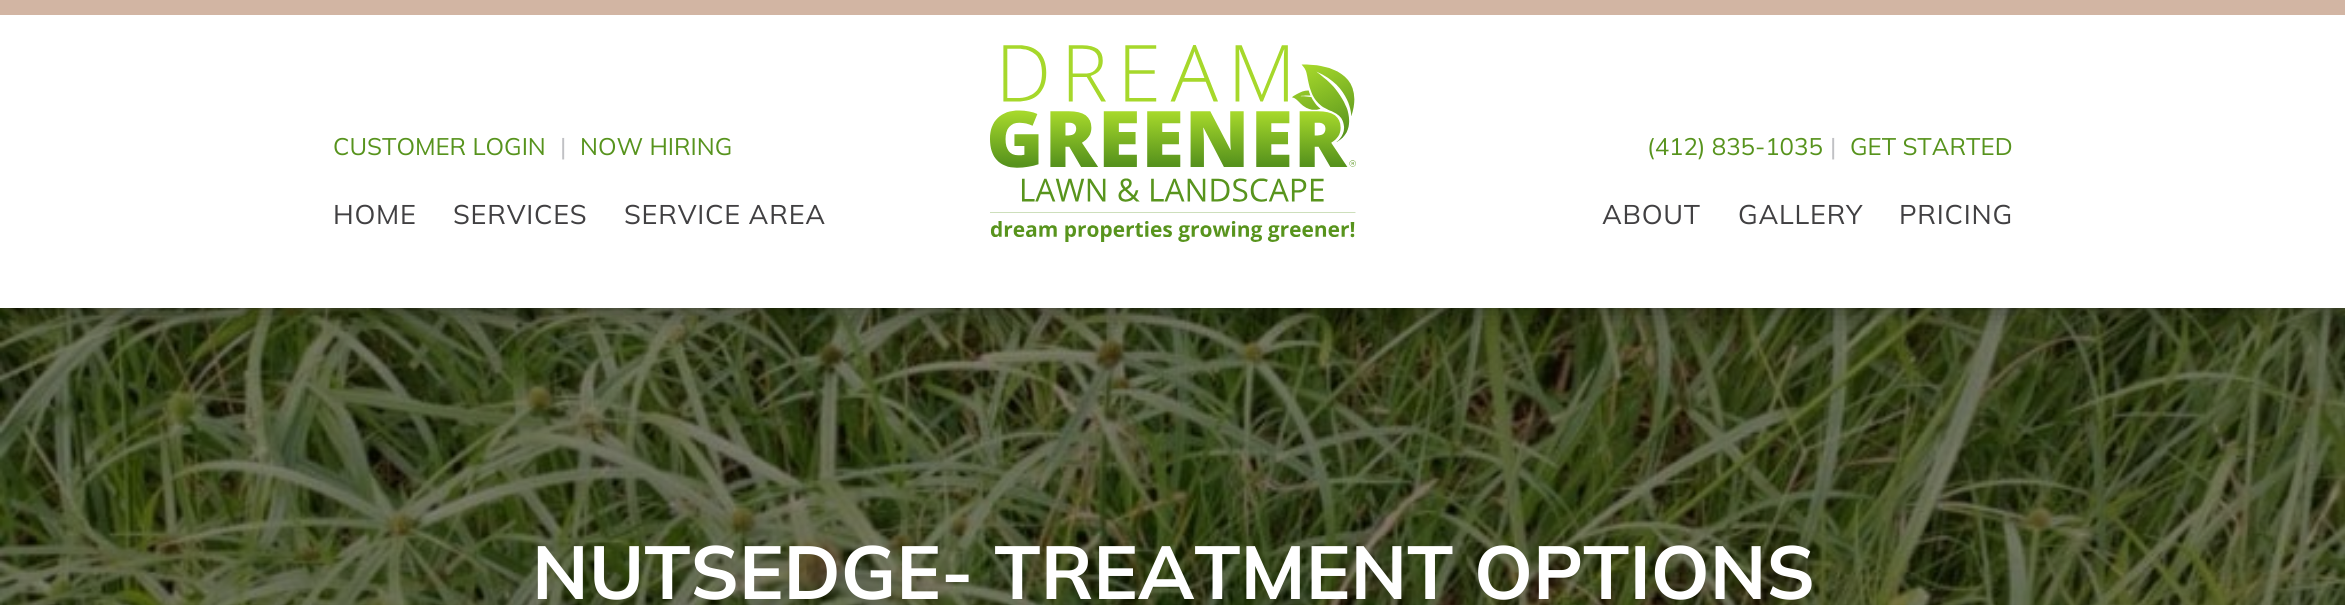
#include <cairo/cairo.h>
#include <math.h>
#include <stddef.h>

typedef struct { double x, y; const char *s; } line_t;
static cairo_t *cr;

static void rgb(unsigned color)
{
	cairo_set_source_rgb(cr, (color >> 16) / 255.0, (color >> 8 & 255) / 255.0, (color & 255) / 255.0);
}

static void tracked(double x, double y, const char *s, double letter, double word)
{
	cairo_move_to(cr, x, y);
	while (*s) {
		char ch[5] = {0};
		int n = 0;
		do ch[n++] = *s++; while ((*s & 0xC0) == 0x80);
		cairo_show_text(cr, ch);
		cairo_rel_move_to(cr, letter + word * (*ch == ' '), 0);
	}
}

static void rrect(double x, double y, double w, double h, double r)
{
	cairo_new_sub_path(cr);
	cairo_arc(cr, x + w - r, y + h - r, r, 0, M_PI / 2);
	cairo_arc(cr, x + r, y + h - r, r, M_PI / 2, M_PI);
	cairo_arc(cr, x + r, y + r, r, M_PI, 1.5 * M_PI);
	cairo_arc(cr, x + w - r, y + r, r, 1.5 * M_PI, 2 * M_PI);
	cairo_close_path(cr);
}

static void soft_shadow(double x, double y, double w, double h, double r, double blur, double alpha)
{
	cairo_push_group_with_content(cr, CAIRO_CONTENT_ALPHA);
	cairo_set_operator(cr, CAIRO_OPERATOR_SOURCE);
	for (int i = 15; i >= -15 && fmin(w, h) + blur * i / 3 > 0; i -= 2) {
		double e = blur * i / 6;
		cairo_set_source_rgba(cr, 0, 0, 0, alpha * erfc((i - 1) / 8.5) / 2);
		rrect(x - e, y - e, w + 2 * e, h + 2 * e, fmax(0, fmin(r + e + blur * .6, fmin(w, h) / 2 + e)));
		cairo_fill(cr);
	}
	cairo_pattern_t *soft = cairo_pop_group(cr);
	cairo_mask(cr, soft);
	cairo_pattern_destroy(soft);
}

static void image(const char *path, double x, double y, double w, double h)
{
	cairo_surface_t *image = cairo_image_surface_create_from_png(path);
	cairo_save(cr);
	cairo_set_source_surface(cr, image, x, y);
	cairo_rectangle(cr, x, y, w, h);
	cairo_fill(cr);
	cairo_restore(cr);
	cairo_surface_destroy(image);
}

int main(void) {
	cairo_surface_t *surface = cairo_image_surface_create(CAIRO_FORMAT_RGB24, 2345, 605);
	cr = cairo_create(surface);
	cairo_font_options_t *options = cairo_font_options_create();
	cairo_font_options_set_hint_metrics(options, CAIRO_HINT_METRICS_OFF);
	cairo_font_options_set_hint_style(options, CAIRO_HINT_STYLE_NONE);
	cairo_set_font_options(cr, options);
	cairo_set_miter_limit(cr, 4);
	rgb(0xffffff);
	cairo_paint(cr);
	image("img/2.png", 0, 308, 2345, 297);
	rgb(0x000000);
	soft_shadow(0, 0, 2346, 308, 0, 15, 0.5);
	rgb(0xffffff);
	cairo_rectangle(cr, 0, 15, 2345, 293);
	cairo_fill(cr);
	rgb(0xd2b5a3);
	cairo_rectangle(cr, 0, 0, 2345, 15);
	cairo_fill(cr);
	image("img/1.png", 990, 45, 366, 197);
	cairo_select_font_face(cr, "Mulish", CAIRO_FONT_SLANT_NORMAL, CAIRO_FONT_WEIGHT_NORMAL);
	cairo_set_font_size(cr, 24);
	rgb(0x57931d);
	cairo_move_to(cr, 333, 155);
	cairo_show_text(cr, "CUSTOMER LOGIN");
	rgb(0xc0c1c4);
	cairo_move_to(cr, 560, 155);
	cairo_show_text(cr, "|");
	rgb(0x57931d);
	cairo_move_to(cr, 580, 155);
	cairo_show_text(cr, "NOW HIRING");
	cairo_move_to(cr, 1647, 155);
	cairo_show_text(cr, "(412) 835-1035");
	rgb(0xc0c1c4);
	cairo_move_to(cr, 1830, 155);
	cairo_show_text(cr, "|");
	rgb(0x57931d);
	cairo_move_to(cr, 1850, 155);
	cairo_show_text(cr, "GET STARTED");
	cairo_set_font_size(cr, 27);
	rgb(0x414042);
	{
		static const line_t items[] = {
			{333, 224, "HOME"},
			{453, 224, "SERVICES"},
			{624, 224, "SERVICE AREA"},
			{1602, 224, "ABOUT"},
			{1738, 224, "GALLERY"},
			{1899, 224, "PRICING"},
		};
		for (size_t i = 0; i < sizeof items / sizeof *items; i++) {
			tracked(items[i].x, items[i].y, items[i].s, 0.75, 0);
		}
	}
	cairo_select_font_face(cr, "Mulish", CAIRO_FONT_SLANT_NORMAL, CAIRO_FONT_WEIGHT_BOLD);
	cairo_set_font_size(cr, 75);
	rgb(0xffffff);
	cairo_move_to(cr, 532, 599);
	cairo_show_text(cr, "NUTSEDGE- TREATMENT OPTIONS");
	cairo_surface_write_to_png(surface, "page.png");
	cairo_font_options_destroy(options);
	cairo_destroy(cr);
	cairo_surface_destroy(surface);
	return 0;
}
